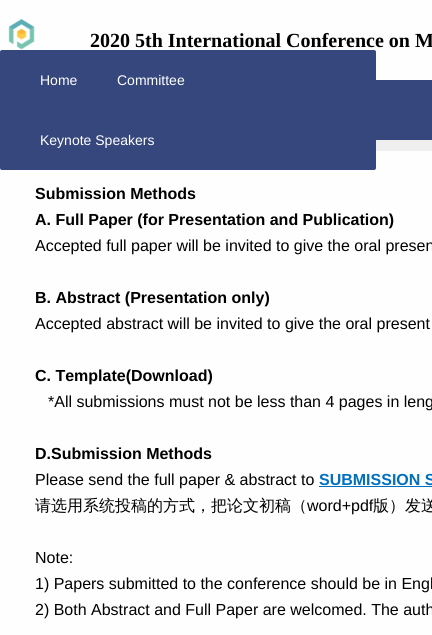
#include <cairo/cairo.h>
#include <math.h>
#include <stddef.h>

typedef struct { double x, y; const char *s; } line_t;
static cairo_t *cr;

static void rgb(unsigned color)
{
	cairo_set_source_rgb(cr, (color >> 16) / 255.0, (color >> 8 & 255) / 255.0, (color & 255) / 255.0);
}

static void rrect(double x, double y, double w, double h, double r)
{
	cairo_new_sub_path(cr);
	cairo_arc(cr, x + w - r, y + h - r, r, 0, M_PI / 2);
	cairo_arc(cr, x + r, y + h - r, r, M_PI / 2, M_PI);
	cairo_arc(cr, x + r, y + r, r, M_PI, 1.5 * M_PI);
	cairo_arc(cr, x + w - r, y + r, r, 1.5 * M_PI, 2 * M_PI);
	cairo_close_path(cr);
}

static void image(const char *path, double x, double y, double w, double h)
{
	cairo_surface_t *image = cairo_image_surface_create_from_png(path);
	cairo_save(cr);
	cairo_set_source_surface(cr, image, x, y);
	cairo_rectangle(cr, x, y, w, h);
	cairo_fill(cr);
	cairo_restore(cr);
	cairo_surface_destroy(image);
}

int main(void) {
	cairo_surface_t *surface = cairo_image_surface_create(CAIRO_FORMAT_RGB24, 432, 635);
	cr = cairo_create(surface);
	cairo_font_options_t *options = cairo_font_options_create();
	cairo_font_options_set_hint_metrics(options, CAIRO_HINT_METRICS_OFF);
	cairo_font_options_set_hint_style(options, CAIRO_HINT_STYLE_NONE);
	cairo_set_font_options(cr, options);
	cairo_set_miter_limit(cr, 4);
	rgb(0xefefef);
	cairo_paint(cr);
	rgb(0xfefefe);
	cairo_rectangle(cr, 0, 0, 432, 80);
	cairo_fill(cr);
	image("img/1.png", 8, 18, 27, 32);
	rgb(0x35477d);
	cairo_rectangle(cr, 376, 80, 56, 60);
	cairo_fill(cr);
	rgb(0xfefefe);
	cairo_rectangle(cr, 0, 151, 432, 484);
	cairo_fill(cr);
	rgb(0x35477d);
	rrect(0, 50, 376, 120, 2);
	cairo_fill(cr);
	rgb(0x0070c0);
	cairo_rectangle(cr, 319, 486, 113, 1);
	cairo_fill(cr);
	cairo_select_font_face(cr, "Liberation Serif", CAIRO_FONT_SLANT_NORMAL, CAIRO_FONT_WEIGHT_BOLD);
	cairo_set_font_size(cr, 20);
	rgb(0x000000);
	cairo_move_to(cr, 90, 47);
	cairo_show_text(cr, "2020 5th International Conference on M");
	cairo_select_font_face(cr, "Liberation Sans", CAIRO_FONT_SLANT_NORMAL, CAIRO_FONT_WEIGHT_NORMAL);
	cairo_set_font_size(cr, 14);
	rgb(0xffffff);
	{
		static const line_t items[] = {
			{40, 85, "Home"},
			{117, 85, "Committee"},
			{40, 145, "Keynote Speakers"},
		};
		for (size_t i = 0; i < sizeof items / sizeof *items; i++) {
			cairo_move_to(cr, items[i].x, items[i].y);
			cairo_show_text(cr, items[i].s);
		}
	}
	cairo_select_font_face(cr, "Liberation Sans", CAIRO_FONT_SLANT_NORMAL, CAIRO_FONT_WEIGHT_BOLD);
	cairo_set_font_size(cr, 16);
	rgb(0x000000);
	cairo_move_to(cr, 35, 199);
	cairo_show_text(cr, "Submission Methods");
	cairo_move_to(cr, 35, 225);
	cairo_show_text(cr, "A. Full Paper (for Presentation and Publication)");
	cairo_select_font_face(cr, "Liberation Sans", CAIRO_FONT_SLANT_NORMAL, CAIRO_FONT_WEIGHT_NORMAL);
	cairo_move_to(cr, 35, 251);
	cairo_show_text(cr, "Accepted full paper will be invited to give the oral presen");
	cairo_select_font_face(cr, "Liberation Sans", CAIRO_FONT_SLANT_NORMAL, CAIRO_FONT_WEIGHT_BOLD);
	cairo_move_to(cr, 35, 303);
	cairo_show_text(cr, "B. Abstract (Presentation only)");
	cairo_select_font_face(cr, "Liberation Sans", CAIRO_FONT_SLANT_NORMAL, CAIRO_FONT_WEIGHT_NORMAL);
	cairo_move_to(cr, 35, 329);
	cairo_show_text(cr, "Accepted abstract will be invited to give the oral present");
	cairo_select_font_face(cr, "Liberation Sans", CAIRO_FONT_SLANT_NORMAL, CAIRO_FONT_WEIGHT_BOLD);
	cairo_move_to(cr, 35, 381);
	cairo_show_text(cr, "C. Template(Download)");
	cairo_select_font_face(cr, "Liberation Sans", CAIRO_FONT_SLANT_NORMAL, CAIRO_FONT_WEIGHT_NORMAL);
	cairo_move_to(cr, 48, 407);
	cairo_show_text(cr, "*All submissions must not be less than 4 pages in leng");
	cairo_select_font_face(cr, "Liberation Sans", CAIRO_FONT_SLANT_NORMAL, CAIRO_FONT_WEIGHT_BOLD);
	cairo_move_to(cr, 35, 459);
	cairo_show_text(cr, "D.Submission Methods");
	cairo_select_font_face(cr, "Liberation Sans", CAIRO_FONT_SLANT_NORMAL, CAIRO_FONT_WEIGHT_NORMAL);
	cairo_move_to(cr, 35, 485);
	cairo_show_text(cr, "Please send the full paper & abstract to");
	cairo_select_font_face(cr, "Liberation Sans", CAIRO_FONT_SLANT_NORMAL, CAIRO_FONT_WEIGHT_BOLD);
	rgb(0x0070c0);
	cairo_move_to(cr, 319, 485);
	cairo_show_text(cr, "SUBMISSION S");
	cairo_select_font_face(cr, "WenQuanYi Zen Hei Medium", CAIRO_FONT_SLANT_NORMAL, CAIRO_FONT_WEIGHT_NORMAL);
	rgb(0x000000);
	cairo_move_to(cr, 35, 511);
	cairo_show_text(cr, "请选用系统投稿的方式，把论文初稿（");
	cairo_select_font_face(cr, "Liberation Sans", CAIRO_FONT_SLANT_NORMAL, CAIRO_FONT_WEIGHT_NORMAL);
	cairo_move_to(cr, 307, 511);
	cairo_show_text(cr, "word+pdf");
	cairo_select_font_face(cr, "WenQuanYi Zen Hei Medium", CAIRO_FONT_SLANT_NORMAL, CAIRO_FONT_WEIGHT_NORMAL);
	cairo_move_to(cr, 373, 511);
	cairo_show_text(cr, "版）发送");
	cairo_select_font_face(cr, "Liberation Sans", CAIRO_FONT_SLANT_NORMAL, CAIRO_FONT_WEIGHT_NORMAL);
	{
		static const line_t items[] = {
			{35, 563, "Note:"},
			{35, 589, "1) Papers submitted to the conference should be in Engl"},
			{35, 615, "2) Both Abstract and Full Paper are welcomed. The auth"},
		};
		for (size_t i = 0; i < sizeof items / sizeof *items; i++) {
			cairo_move_to(cr, items[i].x, items[i].y);
			cairo_show_text(cr, items[i].s);
		}
	}
	cairo_surface_write_to_png(surface, "page.png");
	cairo_font_options_destroy(options);
	cairo_destroy(cr);
	cairo_surface_destroy(surface);
	return 0;
}
